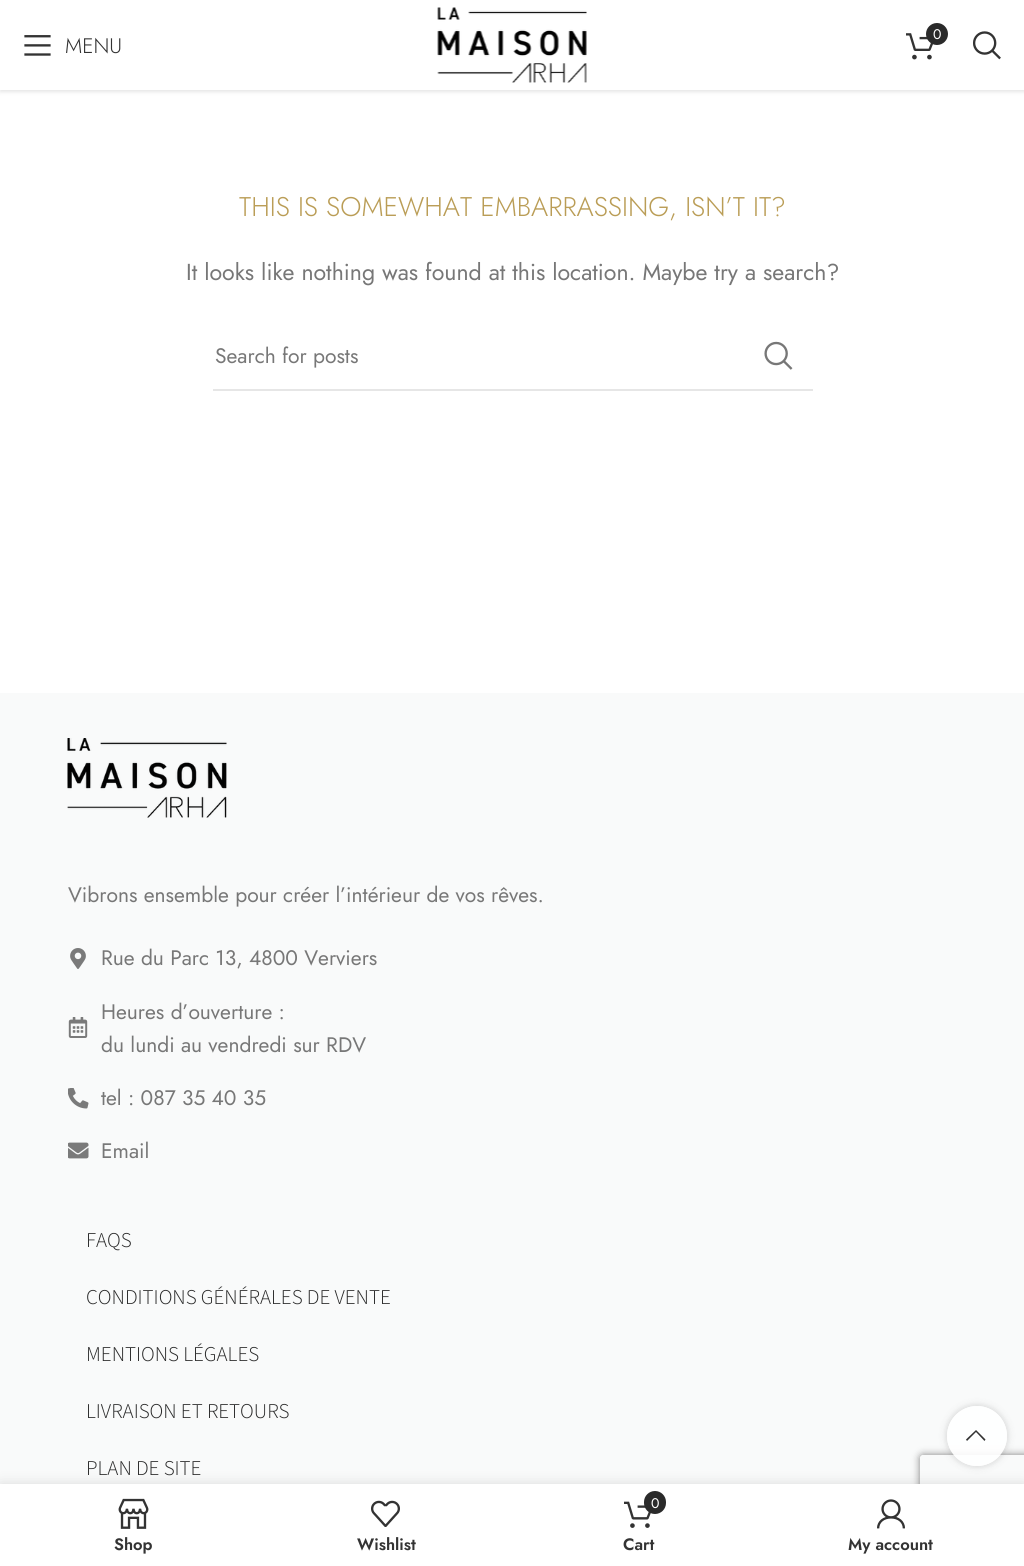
#include <cairo/cairo.h>
#include <math.h>
#include <stddef.h>

typedef struct { double x, y; const char *s; } line_t;
static cairo_t *cr;

static void rgb(unsigned color)
{
	cairo_set_source_rgb(cr, (color >> 16) / 255.0, (color >> 8 & 255) / 255.0, (color & 255) / 255.0);
}

static void rrect(double x, double y, double w, double h, double r)
{
	cairo_new_sub_path(cr);
	cairo_arc(cr, x + w - r, y + h - r, r, 0, M_PI / 2);
	cairo_arc(cr, x + r, y + h - r, r, M_PI / 2, M_PI);
	cairo_arc(cr, x + r, y + r, r, M_PI, 1.5 * M_PI);
	cairo_arc(cr, x + w - r, y + r, r, 1.5 * M_PI, 2 * M_PI);
	cairo_close_path(cr);
}

static void soft_shadow(double x, double y, double w, double h, double r, double blur, double alpha)
{
	cairo_push_group_with_content(cr, CAIRO_CONTENT_ALPHA);
	cairo_set_operator(cr, CAIRO_OPERATOR_SOURCE);
	for (int i = 15; i >= -15 && fmin(w, h) + blur * i / 3 > 0; i -= 2) {
		double e = blur * i / 6;
		cairo_set_source_rgba(cr, 0, 0, 0, alpha * erfc((i - 1) / 8.5) / 2);
		rrect(x - e, y - e, w + 2 * e, h + 2 * e, fmax(0, fmin(r + e + blur * .6, fmin(w, h) / 2 + e)));
		cairo_fill(cr);
	}
	cairo_pattern_t *soft = cairo_pop_group(cr);
	cairo_mask(cr, soft);
	cairo_pattern_destroy(soft);
}

static void image(const char *path, double x, double y, double w, double h)
{
	cairo_surface_t *image = cairo_image_surface_create_from_png(path);
	cairo_save(cr);
	cairo_set_source_surface(cr, image, x, y);
	cairo_rectangle(cr, x, y, w, h);
	cairo_fill(cr);
	cairo_restore(cr);
	cairo_surface_destroy(image);
}

int main(void) {
	cairo_surface_t *surface = cairo_image_surface_create(CAIRO_FORMAT_RGB24, 1024, 1566);
	cr = cairo_create(surface);
	cairo_font_options_t *options = cairo_font_options_create();
	cairo_font_options_set_hint_metrics(options, CAIRO_HINT_METRICS_OFF);
	cairo_font_options_set_hint_style(options, CAIRO_HINT_STYLE_NONE);
	cairo_set_font_options(cr, options);
	cairo_set_miter_limit(cr, 4);
	rgb(0xffffff);
	cairo_paint(cr);
	rgb(0x000000);
	soft_shadow(0, 2, 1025, 90, 0, 2, 0.1);
	rgb(0xffffff);
	cairo_rectangle(cr, 0, 0, 1024, 90);
	cairo_fill(cr);
	image("img/1.png", 437, 7, 150, 76);
	image("img/2.png", 906, 33, 27, 27);
	rgb(0x2a2a2a);
	cairo_arc(cr, 937, 34, 11, 0, 2 * M_PI);
	cairo_fill(cr);
	image("img/3.png", 973, 31, 28, 29);
	image("img/4.png", 24, 35, 27, 21);
	rgb(0xe6e6e6);
	cairo_rectangle(cr, 213, 389, 600, 2);
	cairo_fill(cr);
	image("img/5.png", 764, 341, 29, 29);
	rgb(0xf9fafa);
	cairo_rectangle(cr, 0, 693, 1024, 791);
	cairo_fill(cr);
	image("img/6.png", 67, 738, 160, 80);
	image("img/7.png", 70, 948, 16, 21);
	image("img/8.png", 68, 1017, 20, 21);
	image("img/9.png", 68, 1088, 21, 21);
	image("img/10.png", 68, 1142, 21, 17);
	cairo_save(cr);
	cairo_set_fill_rule(cr, CAIRO_FILL_RULE_EVEN_ODD);
	cairo_new_path(cr);
	cairo_move_to(cr, 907, 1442);
	cairo_line_to(cr, 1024, 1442);
	cairo_line_to(cr, 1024, 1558);
	cairo_line_to(cr, 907, 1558);
	cairo_close_path(cr);
	cairo_move_to(cr, 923, 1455);
	cairo_line_to(cr, 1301, 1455);
	cairo_curve_to(cr, 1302.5, 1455, 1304, 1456.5, 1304, 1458);
	cairo_line_to(cr, 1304, 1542);
	cairo_curve_to(cr, 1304, 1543.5, 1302.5, 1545, 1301, 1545);
	cairo_line_to(cr, 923, 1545);
	cairo_curve_to(cr, 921.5, 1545, 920, 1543.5, 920, 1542);
	cairo_line_to(cr, 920, 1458);
	cairo_curve_to(cr, 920, 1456.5, 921.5, 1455, 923, 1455);
	cairo_close_path(cr);
	cairo_clip(cr);
	rgb(0x808080);
	soft_shadow(920, 1455, 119, 90, 3, 4, 1);
	cairo_restore(cr);
	cairo_save(cr);
	cairo_set_fill_rule(cr, CAIRO_FILL_RULE_EVEN_ODD);
	cairo_new_path(cr);
	cairo_move_to(cr, 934, 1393);
	cairo_line_to(cr, 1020, 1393);
	cairo_line_to(cr, 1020, 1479);
	cairo_line_to(cr, 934, 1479);
	cairo_close_path(cr);
	cairo_move_to(cr, 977, 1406);
	cairo_curve_to(cr, 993.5, 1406, 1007, 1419.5, 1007, 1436);
	cairo_curve_to(cr, 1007, 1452.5, 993.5, 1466, 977, 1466);
	cairo_curve_to(cr, 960.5, 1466, 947, 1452.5, 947, 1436);
	cairo_curve_to(cr, 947, 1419.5, 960.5, 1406, 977, 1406);
	cairo_close_path(cr);
	cairo_clip(cr);
	rgb(0x000000);
	soft_shadow(947, 1406, 60, 60, 30, 4, 0.17);
	cairo_restore(cr);
	cairo_set_source_rgba(cr, 1, 1, 1, 0.9);
	cairo_arc(cr, 977, 1436, 30, 0, 2 * M_PI);
	cairo_fill(cr);
	rgb(0x333333);
	cairo_new_path(cr);
	cairo_move_to(cr, 984.5, 1441);
	cairo_line_to(cr, 985.5, 1439.5);
	cairo_line_to(cr, 976, 1430);
	cairo_line_to(cr, 966, 1439.5);
	cairo_line_to(cr, 967, 1441);
	cairo_line_to(cr, 976, 1432);
	cairo_close_path(cr);
	cairo_fill(cr);
	rgb(0x000000);
	soft_shadow(0, 1484, 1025, 82, 0, 7, 0.12);
	rgb(0xffffff);
	cairo_rectangle(cr, 0, 1484, 1024, 82);
	cairo_fill(cr);
	image("img/11.png", 118, 1498, 31, 31);
	image("img/12.png", 371, 1500, 29, 27);
	image("img/13.png", 624, 1501, 27, 27);
	rgb(0x2a2a2a);
	rrect(644, 1491, 22, 23, 11);
	cairo_fill(cr);
	image("img/14.png", 877, 1499, 28, 30);
	cairo_select_font_face(cr, "Jost", CAIRO_FONT_SLANT_NORMAL, CAIRO_FONT_WEIGHT_NORMAL);
	cairo_set_font_size(cr, 14);
	rgb(0xffffff);
	cairo_move_to(cr, 933, 39);
	cairo_show_text(cr, "0");
	cairo_select_font_face(cr, "Jost Light", CAIRO_FONT_SLANT_NORMAL, CAIRO_FONT_WEIGHT_NORMAL);
	cairo_set_font_size(cr, 21);
	rgb(0x333333);
	cairo_move_to(cr, 65, 53);
	cairo_show_text(cr, "MENU");
	cairo_set_font_size(cr, 27);
	rgb(0xba9d56);
	cairo_move_to(cr, 239, 216);
	cairo_show_text(cr, "THIS IS SOMEWHAT EMBARRASSING, ISN’T IT?");
	cairo_select_font_face(cr, "Jost", CAIRO_FONT_SLANT_NORMAL, CAIRO_FONT_WEIGHT_NORMAL);
	cairo_set_font_size(cr, 23.1);
	rgb(0x777777);
	cairo_move_to(cr, 186, 280);
	cairo_show_text(cr, "It looks like nothing was found at this location. Maybe try a search?");
	cairo_set_font_size(cr, 21);
	{
		static const line_t items[] = {
			{215, 363, "Search for posts"},
			{68, 902, "Vibrons ensemble pour créer l’intérieur de vos rêves."},
			{101, 965, "Rue du Parc 13, 4800 Verviers"},
			{101, 1019, "Heures d’ouverture :"},
			{101, 1052, "du lundi au vendredi sur RDV"},
			{101, 1105, "tel : 087 35 40 35"},
			{101, 1158, "Email"},
		};
		for (size_t i = 0; i < sizeof items / sizeof *items; i++) {
			cairo_move_to(cr, items[i].x, items[i].y);
			cairo_show_text(cr, items[i].s);
		}
	}
	cairo_select_font_face(cr, "Source Sans 3 Light", CAIRO_FONT_SLANT_NORMAL, CAIRO_FONT_WEIGHT_NORMAL);
	rgb(0x2a2a2a);
	{
		static const line_t items[] = {
			{86, 1247, "FAQS"},
			{86, 1304, "CONDITIONS GÉNÉRALES DE VENTE"},
			{86, 1361, "MENTIONS LÉGALES"},
			{86, 1418, "LIVRAISON ET RETOURS"},
			{86, 1475, "PLAN DE SITE"},
		};
		for (size_t i = 0; i < sizeof items / sizeof *items; i++) {
			cairo_move_to(cr, items[i].x, items[i].y);
			cairo_show_text(cr, items[i].s);
		}
	}
	cairo_select_font_face(cr, "Jost SemiBold", CAIRO_FONT_SLANT_NORMAL, CAIRO_FONT_WEIGHT_NORMAL);
	cairo_set_font_size(cr, 16.5);
	rgb(0x333333);
	cairo_move_to(cr, 114, 1550);
	cairo_show_text(cr, "Shop");
	cairo_move_to(cr, 357, 1550);
	cairo_show_text(cr, "Wishlist");
	cairo_select_font_face(cr, "Jost", CAIRO_FONT_SLANT_NORMAL, CAIRO_FONT_WEIGHT_NORMAL);
	cairo_set_font_size(cr, 14);
	rgb(0xffffff);
	cairo_move_to(cr, 651, 1508);
	cairo_show_text(cr, "0");
	cairo_select_font_face(cr, "Jost SemiBold", CAIRO_FONT_SLANT_NORMAL, CAIRO_FONT_WEIGHT_NORMAL);
	cairo_set_font_size(cr, 16.5);
	rgb(0x333333);
	cairo_move_to(cr, 623, 1550);
	cairo_show_text(cr, "Cart");
	cairo_move_to(cr, 848, 1550);
	cairo_show_text(cr, "My account");
	cairo_surface_write_to_png(surface, "page.png");
	cairo_font_options_destroy(options);
	cairo_destroy(cr);
	cairo_surface_destroy(surface);
	return 0;
}
